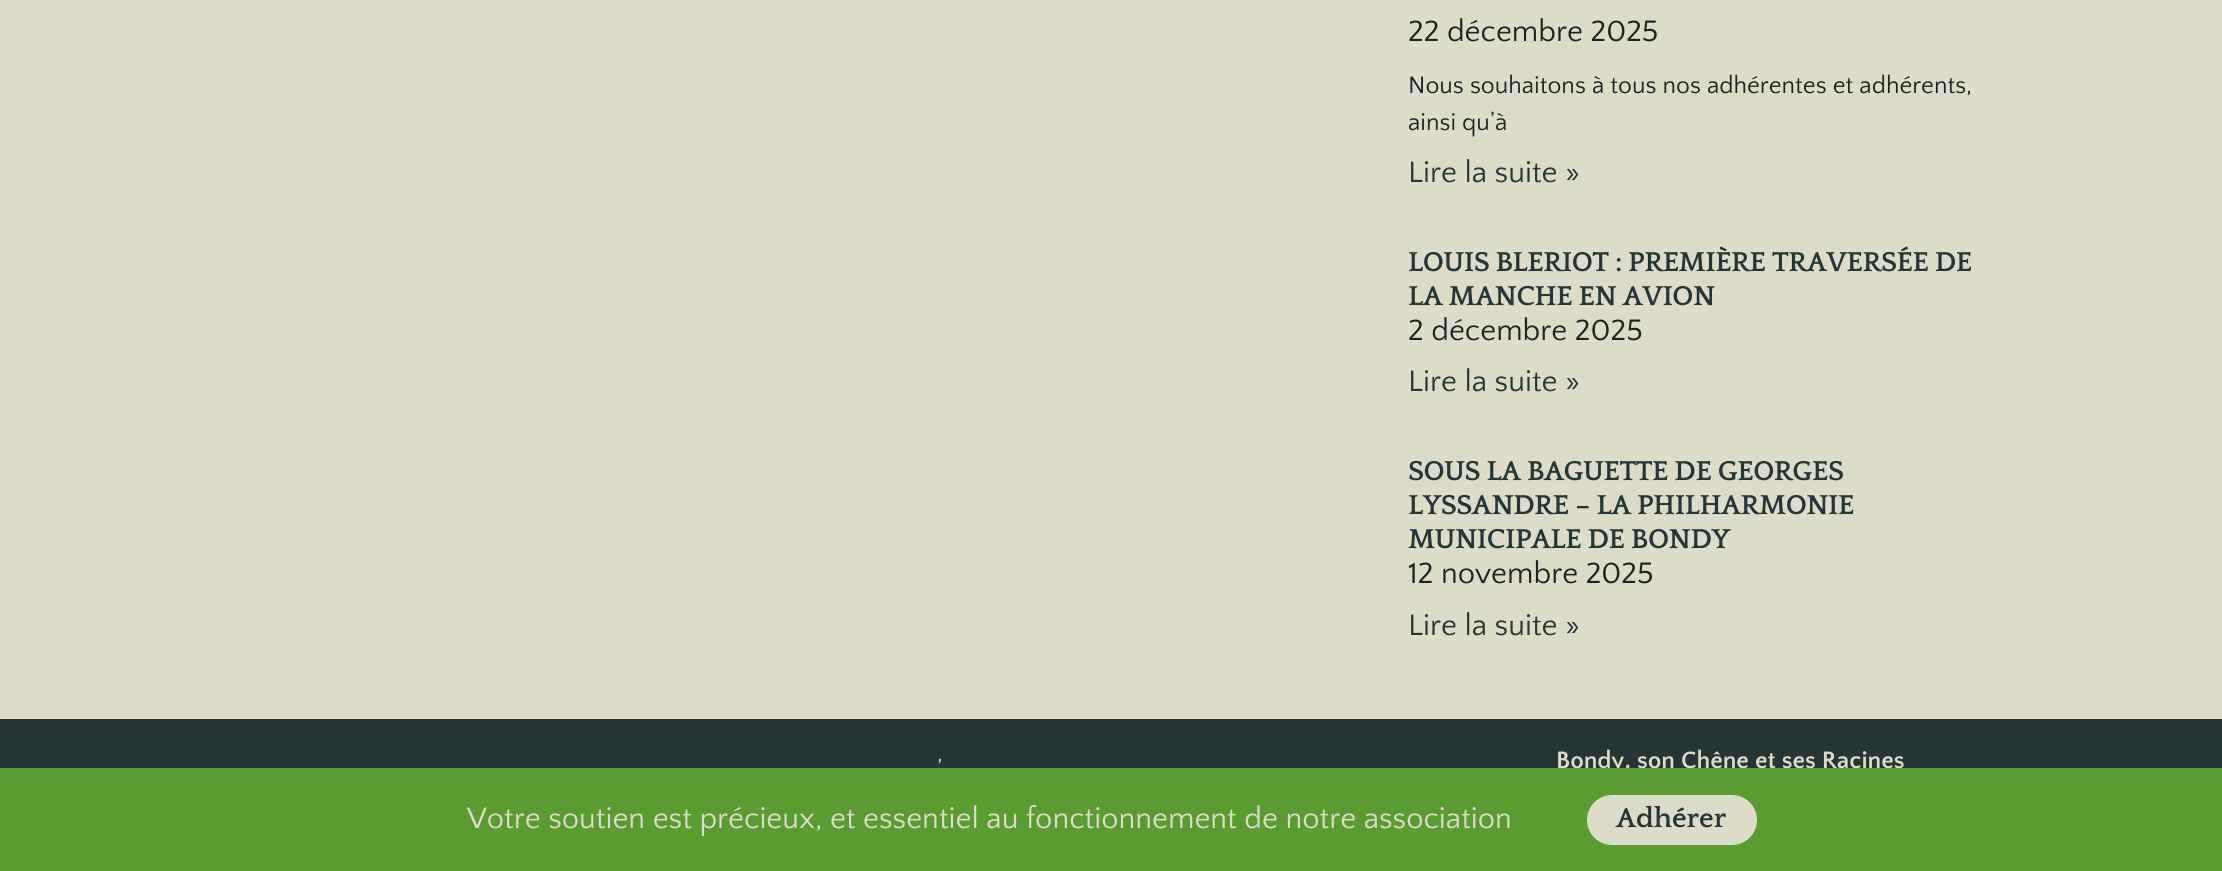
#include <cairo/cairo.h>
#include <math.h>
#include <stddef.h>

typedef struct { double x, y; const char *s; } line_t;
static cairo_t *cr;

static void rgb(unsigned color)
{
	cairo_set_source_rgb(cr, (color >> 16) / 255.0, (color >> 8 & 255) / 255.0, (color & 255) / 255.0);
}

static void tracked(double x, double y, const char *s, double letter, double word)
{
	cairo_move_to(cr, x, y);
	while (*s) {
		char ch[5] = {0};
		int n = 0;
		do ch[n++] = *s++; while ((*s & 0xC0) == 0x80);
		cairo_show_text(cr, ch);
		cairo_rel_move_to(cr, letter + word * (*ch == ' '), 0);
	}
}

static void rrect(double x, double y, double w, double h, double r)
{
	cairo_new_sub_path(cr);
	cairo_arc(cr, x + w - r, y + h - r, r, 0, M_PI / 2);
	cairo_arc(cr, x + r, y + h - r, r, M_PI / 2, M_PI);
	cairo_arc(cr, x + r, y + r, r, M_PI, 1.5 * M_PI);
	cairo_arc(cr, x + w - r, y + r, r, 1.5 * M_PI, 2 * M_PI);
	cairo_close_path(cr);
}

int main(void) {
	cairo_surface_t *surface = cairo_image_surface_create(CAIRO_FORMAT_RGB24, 2222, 871);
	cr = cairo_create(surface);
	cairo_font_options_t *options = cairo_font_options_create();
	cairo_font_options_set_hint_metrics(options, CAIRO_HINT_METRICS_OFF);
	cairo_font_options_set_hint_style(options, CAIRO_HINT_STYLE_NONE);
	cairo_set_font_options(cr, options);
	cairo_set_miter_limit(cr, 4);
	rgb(0xdddcc9);
	cairo_paint(cr);
	rgb(0x263637);
	cairo_rectangle(cr, 0, 719, 2222, 49);
	cairo_fill(cr);
	cairo_select_font_face(cr, "Quattrocento Sans", CAIRO_FONT_SLANT_NORMAL, CAIRO_FONT_WEIGHT_NORMAL);
	cairo_set_font_size(cr, 30.8);
	rgb(0x1a2425);
	cairo_move_to(cr, 1408, 41);
	cairo_show_text(cr, "22 décembre 2025");
	cairo_set_font_size(cr, 24.8);
	cairo_move_to(cr, 1408, 93);
	cairo_show_text(cr, "Nous souhaitons à tous nos adhérentes et adhérents,");
	cairo_move_to(cr, 1408, 130);
	cairo_show_text(cr, "ainsi qu’à");
	cairo_set_font_size(cr, 30.8);
	rgb(0x263637);
	cairo_move_to(cr, 1408, 182);
	cairo_show_text(cr, "Lire la suite »");
	cairo_select_font_face(cr, "Quattrocento", CAIRO_FONT_SLANT_NORMAL, CAIRO_FONT_WEIGHT_BOLD);
	cairo_set_font_size(cr, 28.7);
	tracked(1408, 271, "LOUIS BLERIOT : PREMIÈRE TRAVERSÉE DE", -0.55, 0);
	tracked(1408, 305, "LA MANCHE EN AVION", -0.55, 0);
	cairo_select_font_face(cr, "Quattrocento Sans", CAIRO_FONT_SLANT_NORMAL, CAIRO_FONT_WEIGHT_NORMAL);
	cairo_set_font_size(cr, 30.8);
	rgb(0x1a2425);
	cairo_move_to(cr, 1408, 340);
	cairo_show_text(cr, "2 décembre 2025");
	rgb(0x263637);
	cairo_move_to(cr, 1408, 391);
	cairo_show_text(cr, "Lire la suite »");
	cairo_select_font_face(cr, "Quattrocento", CAIRO_FONT_SLANT_NORMAL, CAIRO_FONT_WEIGHT_BOLD);
	cairo_set_font_size(cr, 28.7);
	{
		static const line_t items[] = {
			{1408, 480, "SOUS LA BAGUETTE DE GEORGES"},
			{1408, 514, "LYSSANDRE – LA PHILHARMONIE"},
			{1408, 548, "MUNICIPALE DE BONDY"},
		};
		for (size_t i = 0; i < sizeof items / sizeof *items; i++) {
			tracked(items[i].x, items[i].y, items[i].s, -0.55, 0);
		}
	}
	cairo_select_font_face(cr, "Quattrocento Sans", CAIRO_FONT_SLANT_NORMAL, CAIRO_FONT_WEIGHT_NORMAL);
	cairo_set_font_size(cr, 30.8);
	rgb(0x1a2425);
	cairo_move_to(cr, 1408, 583);
	cairo_show_text(cr, "12 novembre 2025");
	rgb(0x263637);
	cairo_move_to(cr, 1408, 635);
	cairo_show_text(cr, "Lire la suite »");
	cairo_set_font_size(cr, 24.8);
	rgb(0xdddcc9);
	cairo_move_to(cr, 937, 777);
	cairo_show_text(cr, "’");
	cairo_select_font_face(cr, "Quattrocento Sans", CAIRO_FONT_SLANT_NORMAL, CAIRO_FONT_WEIGHT_BOLD);
	cairo_move_to(cr, 1556, 768);
	cairo_show_text(cr, "Bondy, son Chêne et ses Racines");
	rgb(0x5a9c32);
	cairo_rectangle(cr, 0, 768, 2222, 103);
	cairo_fill(cr);
	cairo_select_font_face(cr, "Quattrocento Sans", CAIRO_FONT_SLANT_NORMAL, CAIRO_FONT_WEIGHT_NORMAL);
	cairo_set_font_size(cr, 30.8);
	rgb(0xdddcc9);
	cairo_move_to(cr, 467, 828);
	cairo_show_text(cr, "Votre soutien est précieux, et essentiel au fonctionnement de notre association");
	rrect(1587, 795, 170, 50, 25);
	cairo_fill(cr);
	cairo_select_font_face(cr, "Quattrocento", CAIRO_FONT_SLANT_NORMAL, CAIRO_FONT_WEIGHT_BOLD);
	cairo_set_font_size(cr, 28.7);
	rgb(0x263637);
	cairo_move_to(cr, 1616, 827);
	cairo_show_text(cr, "Adhérer");
	cairo_surface_write_to_png(surface, "page.png");
	cairo_font_options_destroy(options);
	cairo_destroy(cr);
	cairo_surface_destroy(surface);
	return 0;
}
